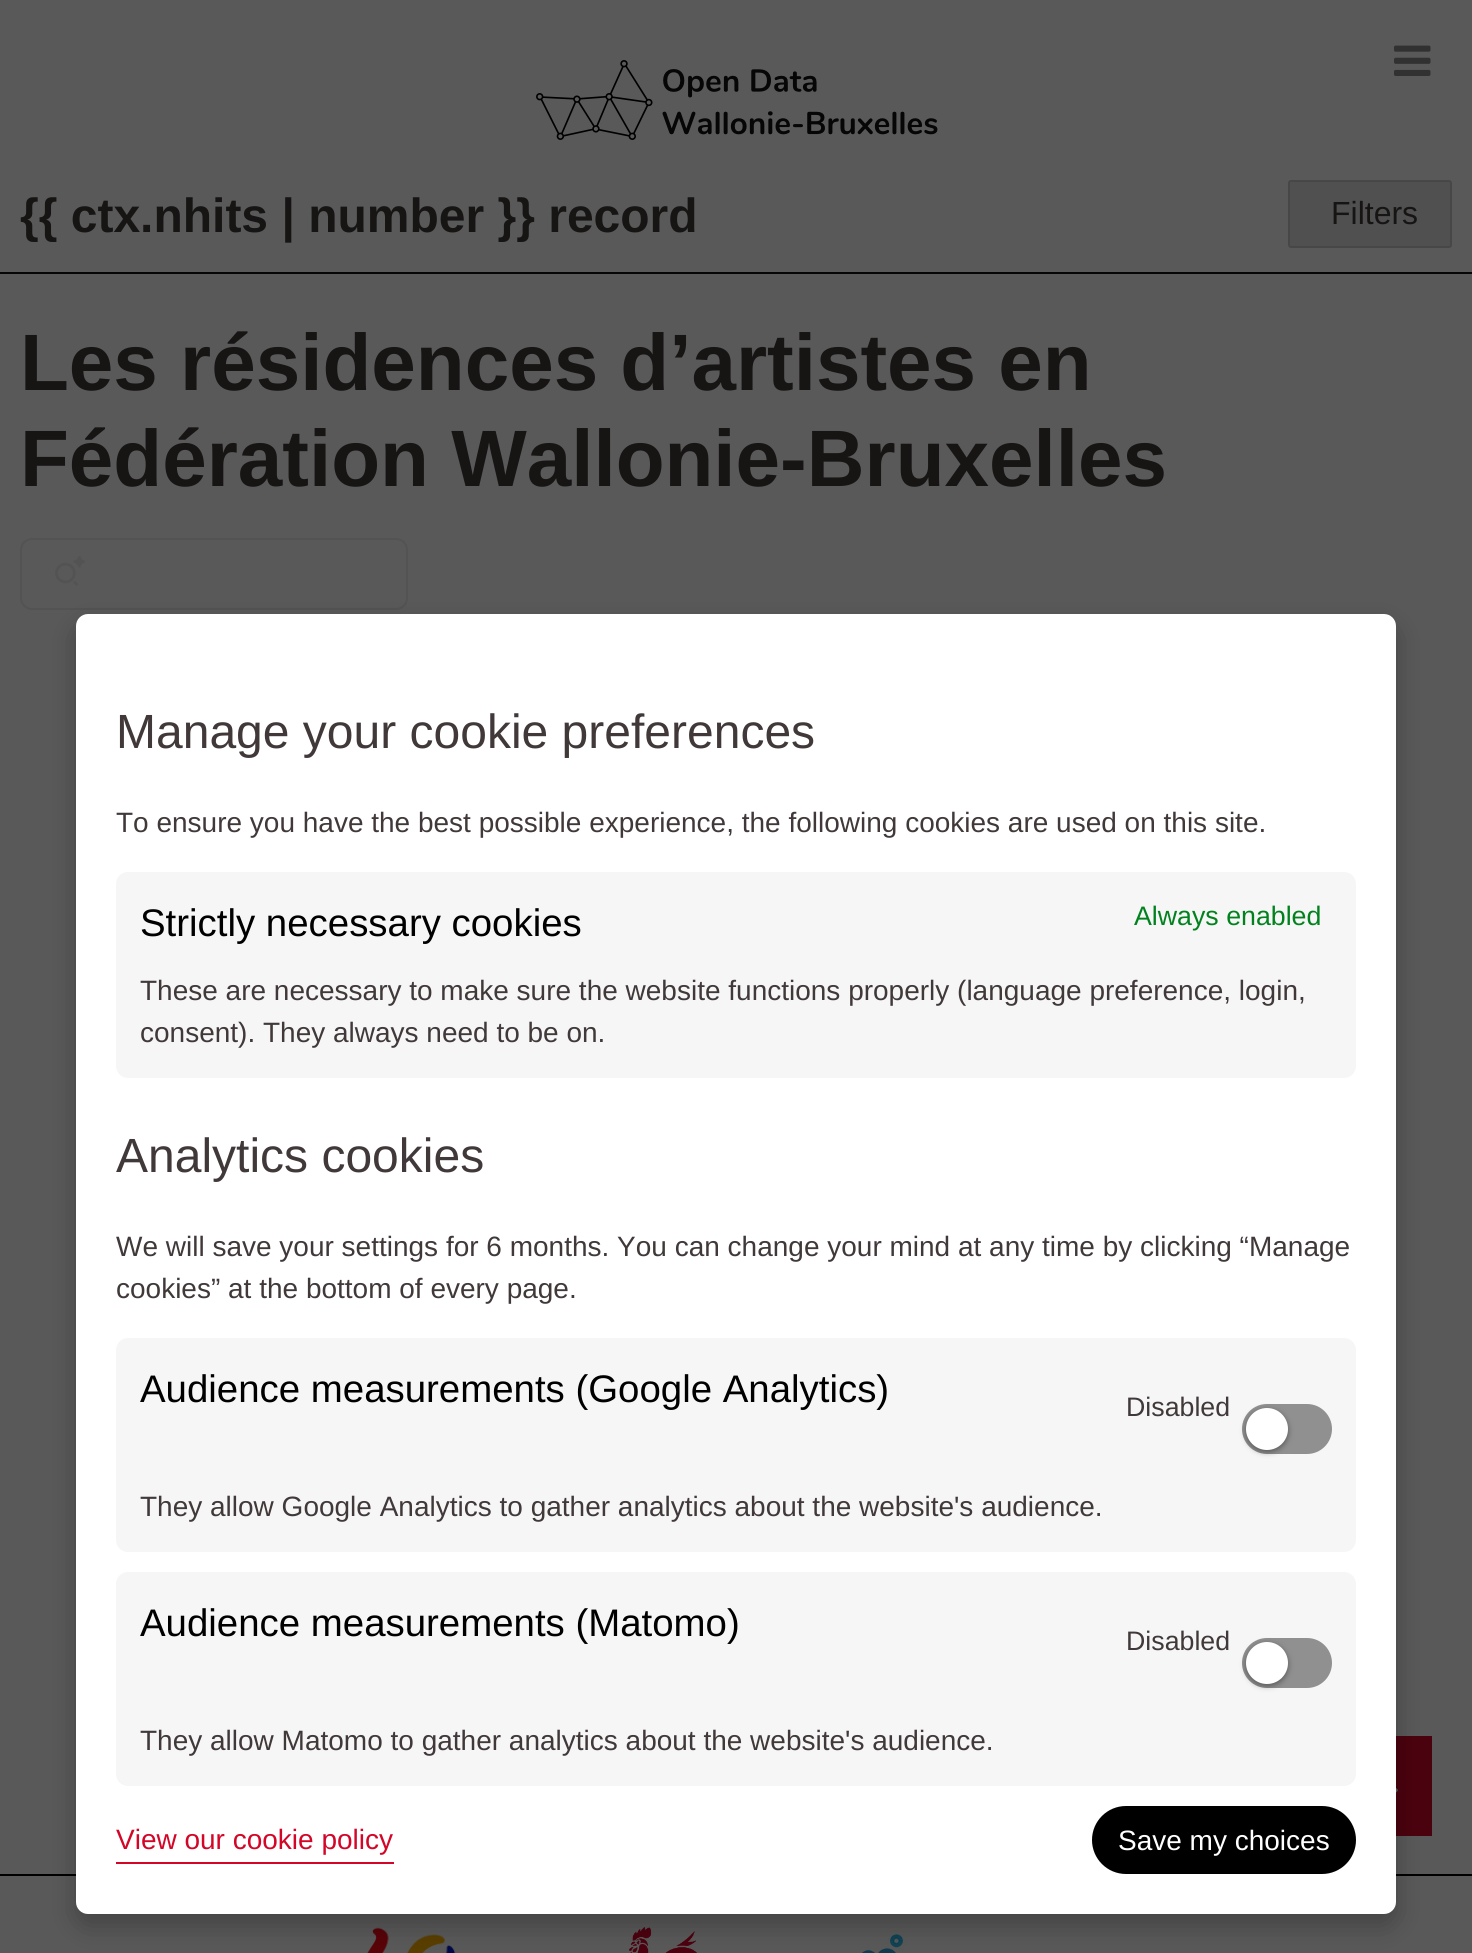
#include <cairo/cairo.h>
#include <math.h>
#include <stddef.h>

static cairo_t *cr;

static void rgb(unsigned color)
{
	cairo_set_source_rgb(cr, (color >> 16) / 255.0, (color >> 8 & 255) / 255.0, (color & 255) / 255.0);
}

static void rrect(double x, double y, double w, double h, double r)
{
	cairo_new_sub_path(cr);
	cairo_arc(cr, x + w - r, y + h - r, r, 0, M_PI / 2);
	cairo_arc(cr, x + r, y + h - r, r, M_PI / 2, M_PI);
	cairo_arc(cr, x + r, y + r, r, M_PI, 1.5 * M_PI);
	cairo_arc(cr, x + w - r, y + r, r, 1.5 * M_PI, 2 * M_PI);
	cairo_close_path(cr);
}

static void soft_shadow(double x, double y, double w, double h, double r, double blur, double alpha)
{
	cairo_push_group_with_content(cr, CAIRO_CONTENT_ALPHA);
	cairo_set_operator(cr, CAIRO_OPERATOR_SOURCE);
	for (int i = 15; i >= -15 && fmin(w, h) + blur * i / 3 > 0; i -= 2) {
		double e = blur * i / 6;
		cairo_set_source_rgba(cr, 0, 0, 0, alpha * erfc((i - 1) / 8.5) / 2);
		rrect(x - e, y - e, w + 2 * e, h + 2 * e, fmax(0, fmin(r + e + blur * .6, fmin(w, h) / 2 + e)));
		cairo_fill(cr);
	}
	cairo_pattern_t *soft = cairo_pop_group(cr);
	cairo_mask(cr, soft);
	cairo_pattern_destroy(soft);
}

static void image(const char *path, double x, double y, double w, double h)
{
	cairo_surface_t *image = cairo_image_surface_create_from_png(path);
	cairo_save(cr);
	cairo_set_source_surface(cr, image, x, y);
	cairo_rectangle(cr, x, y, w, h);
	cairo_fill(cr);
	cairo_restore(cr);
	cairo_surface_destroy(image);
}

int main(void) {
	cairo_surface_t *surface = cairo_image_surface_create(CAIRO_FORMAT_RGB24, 1472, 1953);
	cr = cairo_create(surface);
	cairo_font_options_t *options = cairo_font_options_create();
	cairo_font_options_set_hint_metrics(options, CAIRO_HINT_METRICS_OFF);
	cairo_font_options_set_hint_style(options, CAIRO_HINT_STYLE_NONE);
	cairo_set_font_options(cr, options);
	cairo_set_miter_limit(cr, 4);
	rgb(0x595959);
	cairo_paint(cr);
	image("img/1.png", 536, 60, 402, 80);
	image("img/2.png", 1394, 45, 37, 31);
	rgb(0x060606);
	cairo_rectangle(cr, 0, 272, 1472, 2);
	cairo_fill(cr);
	rgb(0x505050);
	rrect(1289, 181, 162, 66, 2);
	cairo_fill_preserve(cr);
	rgb(0x474747);
	cairo_stroke(cr);
	rrect(21, 539, 386, 70, 11);
	rgb(0x535353);
	cairo_stroke(cr);
	image("img/3.png", 55, 556, 30, 30);
	rgb(0x000000);
	cairo_rectangle(cr, 0, 1874, 1472, 2);
	cairo_fill(cr);
	rgb(0x4a020e);
	cairo_rectangle(cr, 1396, 1736, 36, 100);
	cairo_fill(cr);
	image("img/4.png", 1396, 1787, 2, 6);
	image("img/5.png", 367, 1927, 89, 26);
	image("img/6.png", 629, 1927, 68, 26);
	image("img/7.png", 846, 1928, 62, 25);
	rgb(0x000000);
	soft_shadow(76, 626, 1320, 1300, 12, 13, 0.25);
	rgb(0xffffff);
	rrect(76, 614, 1320, 1300, 12);
	cairo_fill(cr);
	rgb(0xf6f6f6);
	rrect(116, 872, 1240, 206, 12);
	cairo_fill(cr);
	rrect(116, 1338, 1240, 214, 12);
	cairo_fill(cr);
	rgb(0x909090);
	rrect(1244, 1406, 86, 46, 23);
	cairo_fill_preserve(cr);
	cairo_set_line_width(cr, 4);
	cairo_stroke(cr);
	rgb(0x000000);
	soft_shadow(1246, 1410, 42, 42, 21, 3, 0.4);
	rgb(0xffffff);
	cairo_arc(cr, 1267, 1429, 21, 0, 2 * M_PI);
	cairo_fill(cr);
	rgb(0xf6f6f6);
	rrect(116, 1572, 1240, 214, 12);
	cairo_fill(cr);
	rgb(0x909090);
	rrect(1244, 1640, 86, 46, 23);
	cairo_fill_preserve(cr);
	cairo_stroke(cr);
	rgb(0x000000);
	soft_shadow(1246, 1644, 42, 42, 21, 3, 0.4);
	rgb(0xffffff);
	cairo_arc(cr, 1267, 1663, 21, 0, 2 * M_PI);
	cairo_fill(cr);
	rgb(0xd30628);
	cairo_rectangle(cr, 116, 1862, 278, 2);
	cairo_fill(cr);
	rgb(0x000000);
	rrect(1092, 1806, 264, 68, 34);
	cairo_fill(cr);
	cairo_select_font_face(cr, "Liberation Sans", CAIRO_FONT_SLANT_NORMAL, CAIRO_FONT_WEIGHT_BOLD);
	cairo_set_font_size(cr, 48);
	rgb(0x171414);
	cairo_move_to(cr, 20, 232);
	cairo_show_text(cr, "{{ ctx.nhits | number }} record");
	cairo_select_font_face(cr, "Liberation Sans", CAIRO_FONT_SLANT_NORMAL, CAIRO_FONT_WEIGHT_NORMAL);
	cairo_set_font_size(cr, 32);
	cairo_move_to(cr, 1331, 224);
	cairo_show_text(cr, "Filters");
	cairo_select_font_face(cr, "Liberation Sans", CAIRO_FONT_SLANT_NORMAL, CAIRO_FONT_WEIGHT_BOLD);
	cairo_set_font_size(cr, 80);
	cairo_move_to(cr, 20, 390);
	cairo_show_text(cr, "Les résidences d’artistes en");
	cairo_move_to(cr, 20, 486);
	cairo_show_text(cr, "Fédération Wallonie-Bruxelles");
	cairo_select_font_face(cr, "Liberation Sans", CAIRO_FONT_SLANT_NORMAL, CAIRO_FONT_WEIGHT_NORMAL);
	cairo_set_font_size(cr, 48);
	rgb(0x413939);
	cairo_move_to(cr, 116, 748);
	cairo_show_text(cr, "Manage your cookie preferences");
	cairo_set_font_size(cr, 28);
	cairo_move_to(cr, 116, 832);
	cairo_show_text(cr, "To ensure you have the best possible experience, the following cookies are used on this site.");
	cairo_set_font_size(cr, 38.4);
	rgb(0x000000);
	cairo_move_to(cr, 140, 936);
	cairo_show_text(cr, "Strictly necessary cookies");
	cairo_set_font_size(cr, 26.75);
	rgb(0x01821f);
	cairo_move_to(cr, 1134, 925);
	cairo_show_text(cr, "Always enabled");
	cairo_set_font_size(cr, 28);
	rgb(0x413939);
	cairo_move_to(cr, 140, 1000);
	cairo_show_text(cr, "These are necessary to make sure the website functions properly (language preference, login,");
	cairo_move_to(cr, 140, 1042);
	cairo_show_text(cr, "consent). They always need to be on.");
	cairo_set_font_size(cr, 48);
	cairo_move_to(cr, 116, 1172);
	cairo_show_text(cr, "Analytics cookies");
	cairo_set_font_size(cr, 28);
	cairo_move_to(cr, 116, 1256);
	cairo_show_text(cr, "We will save your settings for 6 months. You can change your mind at any time by clicking “Manage");
	cairo_move_to(cr, 116, 1298);
	cairo_show_text(cr, "cookies” at the bottom of every page.");
	cairo_set_font_size(cr, 38.4);
	rgb(0x000000);
	cairo_move_to(cr, 140, 1402);
	cairo_show_text(cr, "Audience measurements (Google Analytics)");
	cairo_set_font_size(cr, 26.75);
	rgb(0x413939);
	cairo_move_to(cr, 1126, 1416);
	cairo_show_text(cr, "Disabled");
	cairo_set_font_size(cr, 28);
	cairo_move_to(cr, 140, 1516);
	cairo_show_text(cr, "They allow Google Analytics to gather analytics about the website's audience.");
	cairo_set_font_size(cr, 38.4);
	rgb(0x000000);
	cairo_move_to(cr, 140, 1636);
	cairo_show_text(cr, "Audience measurements (Matomo)");
	cairo_set_font_size(cr, 26.75);
	rgb(0x413939);
	cairo_move_to(cr, 1126, 1650);
	cairo_show_text(cr, "Disabled");
	cairo_set_font_size(cr, 28);
	cairo_move_to(cr, 140, 1750);
	cairo_show_text(cr, "They allow Matomo to gather analytics about the website's audience.");
	rgb(0xd30628);
	cairo_move_to(cr, 116, 1849);
	cairo_show_text(cr, "View our cookie policy");
	rgb(0xffffff);
	cairo_move_to(cr, 1118, 1850);
	cairo_show_text(cr, "Save my choices");
	cairo_surface_write_to_png(surface, "page.png");
	cairo_font_options_destroy(options);
	cairo_destroy(cr);
	cairo_surface_destroy(surface);
	return 0;
}
